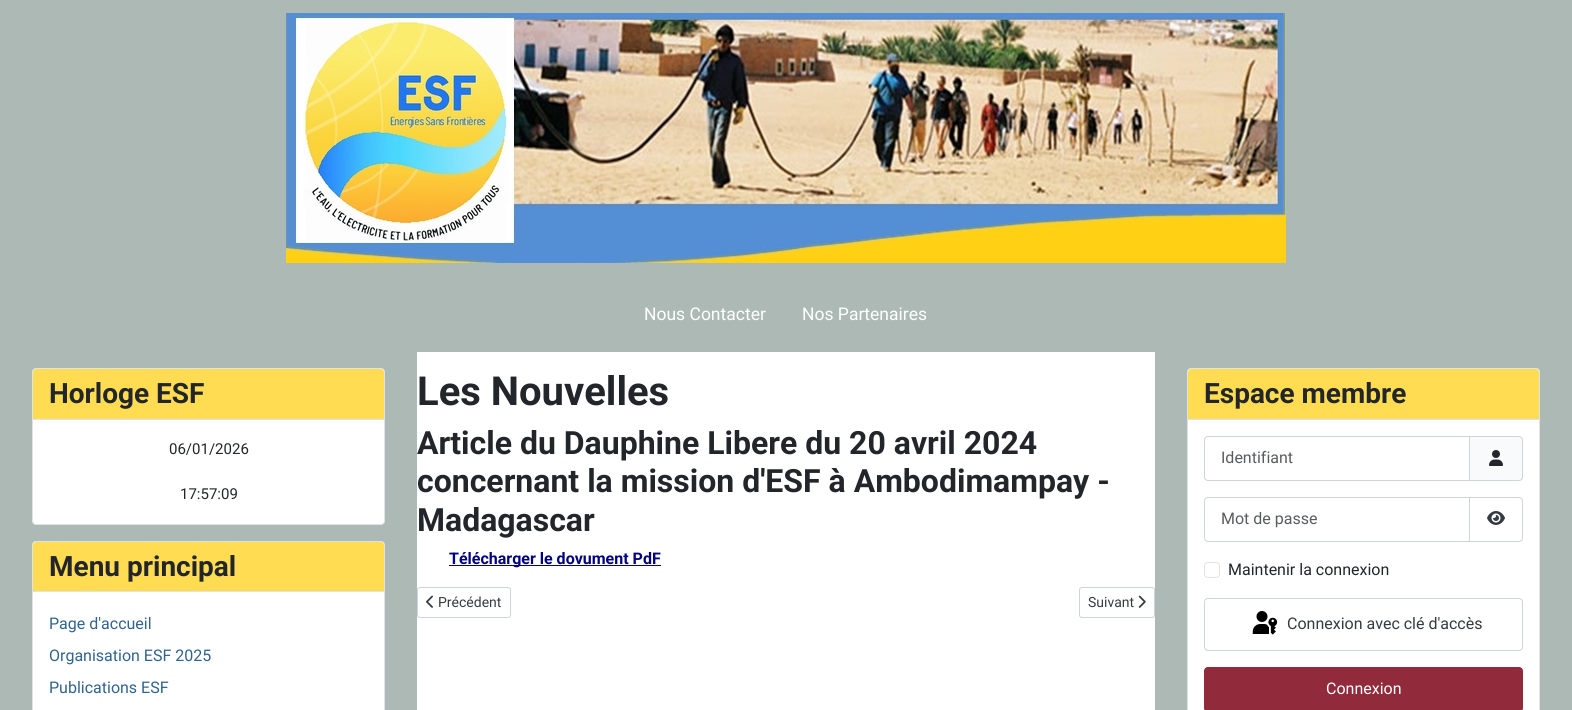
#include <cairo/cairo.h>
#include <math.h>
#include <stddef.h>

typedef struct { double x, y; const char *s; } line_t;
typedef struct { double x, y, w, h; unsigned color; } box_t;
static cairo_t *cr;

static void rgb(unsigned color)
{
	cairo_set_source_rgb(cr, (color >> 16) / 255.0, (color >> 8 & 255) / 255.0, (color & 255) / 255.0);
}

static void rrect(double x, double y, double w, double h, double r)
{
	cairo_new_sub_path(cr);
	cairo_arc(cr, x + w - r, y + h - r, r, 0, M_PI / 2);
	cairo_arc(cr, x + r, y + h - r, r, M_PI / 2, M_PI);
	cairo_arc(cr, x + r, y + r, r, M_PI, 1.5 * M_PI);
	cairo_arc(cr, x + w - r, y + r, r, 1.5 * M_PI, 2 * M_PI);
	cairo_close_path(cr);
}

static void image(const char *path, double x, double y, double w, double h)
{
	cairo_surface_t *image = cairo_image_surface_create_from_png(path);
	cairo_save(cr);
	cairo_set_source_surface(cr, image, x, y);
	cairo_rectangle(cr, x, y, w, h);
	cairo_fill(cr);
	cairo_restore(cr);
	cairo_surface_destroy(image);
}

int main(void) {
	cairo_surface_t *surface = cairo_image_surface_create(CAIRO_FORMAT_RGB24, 1572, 710);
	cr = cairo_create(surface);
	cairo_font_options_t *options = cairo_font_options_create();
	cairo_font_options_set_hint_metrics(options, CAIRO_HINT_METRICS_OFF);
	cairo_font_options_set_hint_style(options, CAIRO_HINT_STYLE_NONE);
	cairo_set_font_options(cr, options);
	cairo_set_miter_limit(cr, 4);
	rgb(0xacb9b5);
	cairo_paint(cr);
	image("img/1.png", 286, 13, 1000, 250);
	rgb(0xffffff);
	rrect(32.5, 368.5, 352, 156, 3.5);
	cairo_fill_preserve(cr);
	rgb(0xdfe3e7);
	cairo_set_line_width(cr, 1);
	cairo_stroke(cr);
	rgb(0xffdc52);
	cairo_new_path(cr);
	cairo_move_to(cr, 36, 369);
	cairo_line_to(cr, 381, 369);
	cairo_curve_to(cr, 382.5, 369, 384, 370.5, 384, 372);
	cairo_line_to(cr, 384, 420);
	cairo_line_to(cr, 33, 420);
	cairo_line_to(cr, 33, 372);
	cairo_curve_to(cr, 33, 370.5, 34.5, 369, 36, 369);
	cairo_close_path(cr);
	cairo_fill(cr);
	rgb(0xdfe3e7);
	cairo_rectangle(cr, 33, 419, 351, 1);
	cairo_fill(cr);
	rgb(0xffffff);
	rrect(32.5, 541.5, 352, 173, 3.5);
	cairo_fill_preserve(cr);
	rgb(0xdfe3e7);
	cairo_stroke(cr);
	rgb(0xffdc52);
	cairo_new_path(cr);
	cairo_move_to(cr, 36, 542);
	cairo_line_to(cr, 381, 542);
	cairo_curve_to(cr, 382.5, 542, 384, 543.5, 384, 545);
	cairo_line_to(cr, 384, 592);
	cairo_line_to(cr, 33, 592);
	cairo_line_to(cr, 33, 545);
	cairo_curve_to(cr, 33, 543.5, 34.5, 542, 36, 542);
	cairo_close_path(cr);
	cairo_fill(cr);
	{
		static const box_t items[] = {
			{33, 591, 351, 1, 0xdfe3e7},
			{417, 352, 738, 358, 0xffffff},
			{449, 565, 212, 1, 0x000080},
		};
		for (size_t i = 0; i < sizeof items / sizeof *items; i++) {
			rgb(items[i].color);
			cairo_rectangle(cr, items[i].x, items[i].y, items[i].w, items[i].h);
			cairo_fill(cr);
		}
	}
	rrect(417.5, 587.5, 93, 30, 2.5);
	rgb(0xced4da);
	cairo_stroke(cr);
	image("img/2.png", 426, 595, 7, 13);
	rrect(1079.5, 587.5, 75, 30, 2.5);
	cairo_stroke(cr);
	image("img/3.png", 1138, 595, 8, 13);
	rgb(0xffffff);
	rrect(1187.5, 368.5, 352, 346, 3.5);
	cairo_fill_preserve(cr);
	rgb(0xdfe3e7);
	cairo_stroke(cr);
	rgb(0xffdc52);
	cairo_new_path(cr);
	cairo_move_to(cr, 1191, 369);
	cairo_line_to(cr, 1536, 369);
	cairo_curve_to(cr, 1537.5, 369, 1539, 370.5, 1539, 372);
	cairo_line_to(cr, 1539, 420);
	cairo_line_to(cr, 1188, 420);
	cairo_line_to(cr, 1188, 372);
	cairo_curve_to(cr, 1188, 370.5, 1189.5, 369, 1191, 369);
	cairo_close_path(cr);
	cairo_fill(cr);
	rgb(0xdfe3e7);
	cairo_rectangle(cr, 1188, 419, 351, 1);
	cairo_fill(cr);
	rgb(0xf9fafb);
	cairo_new_path(cr);
	cairo_move_to(cr, 1469.5, 436.5);
	cairo_line_to(cr, 1519, 436.5);
	cairo_curve_to(cr, 1521, 436.5, 1522.5, 438, 1522.5, 440);
	cairo_line_to(cr, 1522.5, 477);
	cairo_curve_to(cr, 1522.5, 479, 1521, 480.5, 1519, 480.5);
	cairo_line_to(cr, 1469.5, 480.5);
	cairo_close_path(cr);
	cairo_fill_preserve(cr);
	rgb(0xced4da);
	cairo_stroke(cr);
	cairo_new_path(cr);
	cairo_move_to(cr, 1208, 436.5);
	cairo_line_to(cr, 1469.5, 436.5);
	cairo_line_to(cr, 1469.5, 480.5);
	cairo_line_to(cr, 1208, 480.5);
	cairo_curve_to(cr, 1206, 480.5, 1204.5, 479, 1204.5, 477);
	cairo_line_to(cr, 1204.5, 440);
	cairo_curve_to(cr, 1204.5, 438, 1206, 436.5, 1208, 436.5);
	cairo_close_path(cr);
	cairo_stroke(cr);
	image("img/4.png", 1489, 450, 14, 16);
	cairo_new_path(cr);
	cairo_move_to(cr, 1208, 497.5);
	cairo_line_to(cr, 1469.5, 497.5);
	cairo_line_to(cr, 1469.5, 541.5);
	cairo_line_to(cr, 1208, 541.5);
	cairo_curve_to(cr, 1206, 541.5, 1204.5, 540, 1204.5, 538);
	cairo_line_to(cr, 1204.5, 501);
	cairo_curve_to(cr, 1204.5, 499, 1206, 497.5, 1208, 497.5);
	cairo_close_path(cr);
	cairo_stroke(cr);
	rgb(0xffffff);
	cairo_new_path(cr);
	cairo_move_to(cr, 1469.5, 497.5);
	cairo_line_to(cr, 1519, 497.5);
	cairo_curve_to(cr, 1521, 497.5, 1522.5, 499, 1522.5, 501);
	cairo_line_to(cr, 1522.5, 538);
	cairo_curve_to(cr, 1522.5, 540, 1521, 541.5, 1519, 541.5);
	cairo_line_to(cr, 1469.5, 541.5);
	cairo_close_path(cr);
	cairo_fill_preserve(cr);
	rgb(0xced4da);
	cairo_stroke(cr);
	image("img/5.png", 1487, 511, 18, 14);
	rrect(1204.5, 562.5, 15, 15, 3.5);
	rgb(0xdfe3e7);
	cairo_stroke(cr);
	rrect(1204.5, 598.5, 318, 52, 3.5);
	rgb(0xced4da);
	cairo_stroke(cr);
	image("img/6.png", 1252, 611, 26, 24);
	rgb(0x912b3b);
	rrect(1204.5, 667.5, 318, 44, 3.5);
	cairo_fill_preserve(cr);
	cairo_stroke(cr);
	cairo_select_font_face(cr, "Roboto", CAIRO_FONT_SLANT_NORMAL, CAIRO_FONT_WEIGHT_NORMAL);
	cairo_set_font_size(cr, 17.5);
	rgb(0xffffff);
	cairo_move_to(cr, 644, 320);
	cairo_show_text(cr, "Nous Contacter");
	cairo_move_to(cr, 802, 320);
	cairo_show_text(cr, "Nos Partenaires");
	cairo_select_font_face(cr, "Roboto", CAIRO_FONT_SLANT_NORMAL, CAIRO_FONT_WEIGHT_BOLD);
	cairo_set_font_size(cr, 28);
	rgb(0x22262a);
	cairo_move_to(cr, 49, 403);
	cairo_show_text(cr, "Horloge ESF");
	cairo_select_font_face(cr, "Roboto", CAIRO_FONT_SLANT_NORMAL, CAIRO_FONT_WEIGHT_NORMAL);
	cairo_set_font_size(cr, 15);
	cairo_move_to(cr, 169, 454);
	cairo_show_text(cr, "06/01/2026");
	cairo_move_to(cr, 180, 499);
	cairo_show_text(cr, "17:57:09");
	cairo_select_font_face(cr, "Roboto", CAIRO_FONT_SLANT_NORMAL, CAIRO_FONT_WEIGHT_BOLD);
	cairo_set_font_size(cr, 28);
	cairo_move_to(cr, 49, 576);
	cairo_show_text(cr, "Menu principal");
	cairo_select_font_face(cr, "Roboto", CAIRO_FONT_SLANT_NORMAL, CAIRO_FONT_WEIGHT_NORMAL);
	cairo_set_font_size(cr, 16);
	rgb(0x30638d);
	{
		static const line_t items[] = {
			{49, 629, "Page d'accueil"},
			{49, 661, "Organisation ESF 2025"},
			{49, 693, "Publications ESF"},
		};
		for (size_t i = 0; i < sizeof items / sizeof *items; i++) {
			cairo_move_to(cr, items[i].x, items[i].y);
			cairo_show_text(cr, items[i].s);
		}
	}
	cairo_select_font_face(cr, "Roboto", CAIRO_FONT_SLANT_NORMAL, CAIRO_FONT_WEIGHT_BOLD);
	cairo_set_font_size(cr, 40);
	rgb(0x22262a);
	cairo_move_to(cr, 417, 405);
	cairo_show_text(cr, "Les Nouvelles");
	cairo_set_font_size(cr, 32);
	{
		static const line_t items[] = {
			{417, 454, "Article du Dauphine Libere du 20 avril 2024"},
			{417, 492, "concernant la mission d'ESF à Ambodimampay -"},
			{417, 531, "Madagascar"},
		};
		for (size_t i = 0; i < sizeof items / sizeof *items; i++) {
			cairo_move_to(cr, items[i].x, items[i].y);
			cairo_show_text(cr, items[i].s);
		}
	}
	cairo_set_font_size(cr, 16);
	rgb(0x000080);
	cairo_move_to(cr, 449, 564);
	cairo_show_text(cr, "Télécharger le dovument PdF");
	cairo_select_font_face(cr, "Roboto", CAIRO_FONT_SLANT_NORMAL, CAIRO_FONT_WEIGHT_NORMAL);
	cairo_set_font_size(cr, 14);
	rgb(0x353b41);
	cairo_move_to(cr, 438, 607);
	cairo_show_text(cr, "Précédent");
	cairo_move_to(cr, 1088, 607);
	cairo_show_text(cr, "Suivant");
	cairo_select_font_face(cr, "Roboto", CAIRO_FONT_SLANT_NORMAL, CAIRO_FONT_WEIGHT_BOLD);
	cairo_set_font_size(cr, 28);
	rgb(0x22262a);
	cairo_move_to(cr, 1204, 403);
	cairo_show_text(cr, "Espace membre");
	cairo_select_font_face(cr, "Roboto", CAIRO_FONT_SLANT_NORMAL, CAIRO_FONT_WEIGHT_NORMAL);
	cairo_set_font_size(cr, 16);
	rgb(0x595c5f);
	cairo_move_to(cr, 1221, 463);
	cairo_show_text(cr, "Identifiant");
	cairo_move_to(cr, 1221, 524);
	cairo_show_text(cr, "Mot de passe");
	rgb(0x22262a);
	cairo_move_to(cr, 1228, 575);
	cairo_show_text(cr, "Maintenir la connexion");
	rgb(0x353b41);
	cairo_move_to(cr, 1287, 629);
	cairo_show_text(cr, "Connexion avec clé d'accès");
	rgb(0xffffff);
	cairo_move_to(cr, 1326, 694);
	cairo_show_text(cr, "Connexion");
	cairo_surface_write_to_png(surface, "page.png");
	cairo_font_options_destroy(options);
	cairo_destroy(cr);
	cairo_surface_destroy(surface);
	return 0;
}
